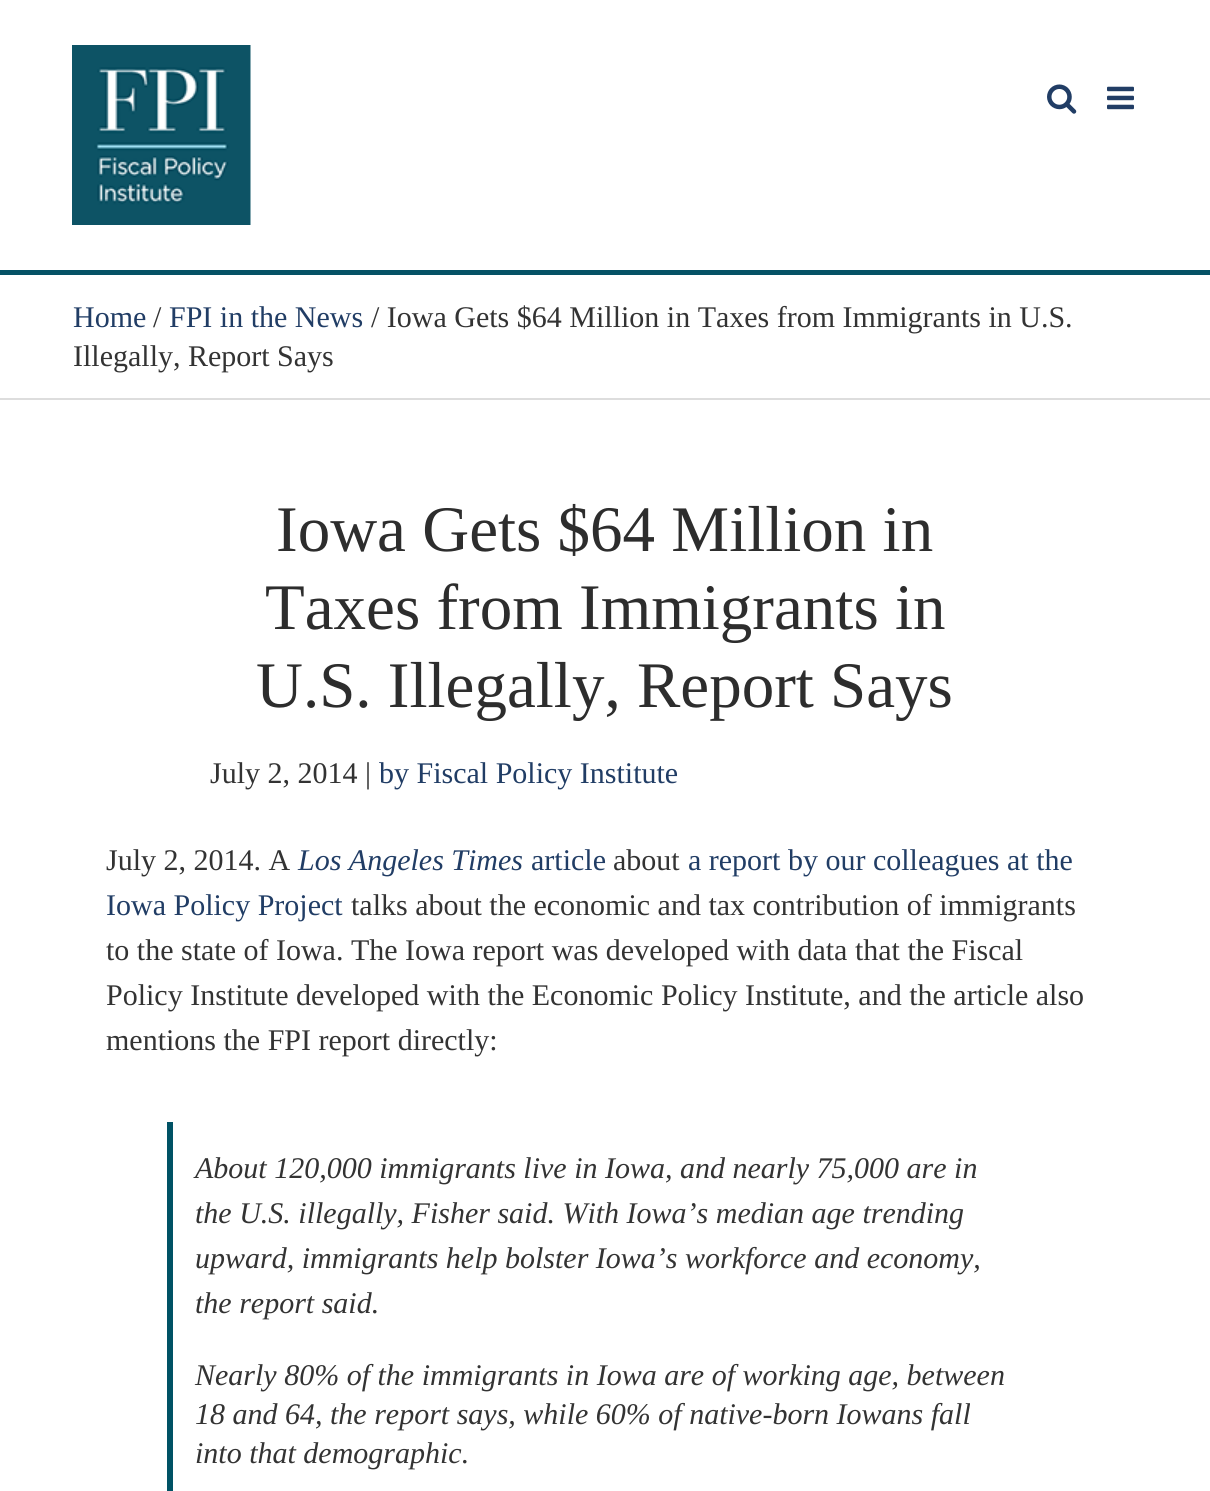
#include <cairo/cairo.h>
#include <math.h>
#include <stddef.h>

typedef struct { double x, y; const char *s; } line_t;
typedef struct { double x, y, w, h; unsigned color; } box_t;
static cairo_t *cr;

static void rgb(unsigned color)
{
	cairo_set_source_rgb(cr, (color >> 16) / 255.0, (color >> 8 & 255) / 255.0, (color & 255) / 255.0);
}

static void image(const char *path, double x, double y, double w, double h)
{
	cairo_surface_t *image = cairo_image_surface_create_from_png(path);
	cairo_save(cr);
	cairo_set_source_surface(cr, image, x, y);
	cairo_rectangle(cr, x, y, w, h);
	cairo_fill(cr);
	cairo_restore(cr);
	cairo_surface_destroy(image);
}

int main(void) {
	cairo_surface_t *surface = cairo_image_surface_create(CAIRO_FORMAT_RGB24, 1210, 1491);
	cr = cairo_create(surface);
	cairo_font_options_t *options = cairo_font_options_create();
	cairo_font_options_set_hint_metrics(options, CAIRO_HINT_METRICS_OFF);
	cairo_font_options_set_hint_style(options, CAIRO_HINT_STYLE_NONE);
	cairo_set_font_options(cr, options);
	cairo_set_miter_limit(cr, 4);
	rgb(0xffffff);
	cairo_paint(cr);
	image("img/1.png", 72, 45, 179, 180);
	image("img/2.png", 1047, 84, 30, 30);
	image("img/3.png", 1107, 86, 27, 24);
	{
		static const box_t items[] = {
			{0, 270, 1210, 5, 0x055265},
			{0, 398, 1210, 2, 0xdddddd},
			{167, 1122, 6, 369, 0x005265},
		};
		for (size_t i = 0; i < sizeof items / sizeof *items; i++) {
			rgb(items[i].color);
			cairo_rectangle(cr, items[i].x, items[i].y, items[i].w, items[i].h);
			cairo_fill(cr);
		}
	}
	cairo_select_font_face(cr, "Liberation Serif", CAIRO_FONT_SLANT_NORMAL, CAIRO_FONT_WEIGHT_NORMAL);
	cairo_set_font_size(cr, 30);
	rgb(0x213d65);
	cairo_move_to(cr, 73, 327);
	cairo_show_text(cr, "Home");
	rgb(0x333333);
	cairo_move_to(cr, 153, 327);
	cairo_show_text(cr, "/");
	rgb(0x213d65);
	cairo_move_to(cr, 169, 327);
	cairo_show_text(cr, "FPI in the News");
	rgb(0x333333);
	cairo_move_to(cr, 371, 327);
	cairo_show_text(cr, "/ Iowa Gets $64 Million in Taxes from Immigrants in U.S.");
	cairo_move_to(cr, 73, 366);
	cairo_show_text(cr, "Illegally, Report Says");
	cairo_set_font_size(cr, 65);
	rgb(0x2d2d2d);
	{
		static const line_t items[] = {
			{276, 551, "Iowa Gets $64 Million in"},
			{265, 629, "Taxes from Immigrants in"},
			{256, 707, "U.S. Illegally, Report Says"},
		};
		for (size_t i = 0; i < sizeof items / sizeof *items; i++) {
			cairo_move_to(cr, items[i].x, items[i].y);
			cairo_show_text(cr, items[i].s);
		}
	}
	cairo_set_font_size(cr, 30);
	rgb(0x333333);
	cairo_move_to(cr, 210, 783);
	cairo_show_text(cr, "July 2, 2014 |");
	rgb(0x213d65);
	cairo_move_to(cr, 379, 783);
	cairo_show_text(cr, "by Fiscal Policy Institute");
	rgb(0x333333);
	cairo_move_to(cr, 106, 870);
	cairo_show_text(cr, "July 2, 2014. A");
	cairo_select_font_face(cr, "Liberation Serif", CAIRO_FONT_SLANT_ITALIC, CAIRO_FONT_WEIGHT_NORMAL);
	rgb(0x213d65);
	cairo_move_to(cr, 298, 870);
	cairo_show_text(cr, "Los Angeles Times");
	cairo_select_font_face(cr, "Liberation Serif", CAIRO_FONT_SLANT_NORMAL, CAIRO_FONT_WEIGHT_NORMAL);
	cairo_move_to(cr, 531, 870);
	cairo_show_text(cr, "article");
	rgb(0x333333);
	cairo_move_to(cr, 613, 870);
	cairo_show_text(cr, "about");
	rgb(0x213d65);
	cairo_move_to(cr, 688, 870);
	cairo_show_text(cr, "a report by our colleagues at the");
	cairo_move_to(cr, 106, 915);
	cairo_show_text(cr, "Iowa Policy Project");
	rgb(0x333333);
	{
		static const line_t items[] = {
			{351, 915, "talks about the economic and tax contribution of immigrants"},
			{106, 960, "to the state of Iowa. The Iowa report was developed with data that the Fiscal"},
			{106, 1005, "Policy Institute developed with the Economic Policy Institute, and the article also"},
			{106, 1050, "mentions the FPI report directly:"},
		};
		for (size_t i = 0; i < sizeof items / sizeof *items; i++) {
			cairo_move_to(cr, items[i].x, items[i].y);
			cairo_show_text(cr, items[i].s);
		}
	}
	cairo_select_font_face(cr, "Liberation Serif", CAIRO_FONT_SLANT_ITALIC, CAIRO_FONT_WEIGHT_NORMAL);
	{
		static const line_t items[] = {
			{195, 1178, "About 120,000 immigrants live in Iowa, and nearly 75,000 are in"},
			{195, 1223, "the U.S. illegally, Fisher said. With Iowa’s median age trending"},
			{195, 1268, "upward, immigrants help bolster Iowa’s workforce and economy,"},
			{195, 1313, "the report said."},
			{195, 1385, "Nearly 80% of the immigrants in Iowa are of working age, between"},
			{195, 1424, "18 and 64, the report says, while 60% of native-born Iowans fall"},
			{195, 1463, "into that demographic."},
		};
		for (size_t i = 0; i < sizeof items / sizeof *items; i++) {
			cairo_move_to(cr, items[i].x, items[i].y);
			cairo_show_text(cr, items[i].s);
		}
	}
	cairo_surface_write_to_png(surface, "page.png");
	cairo_font_options_destroy(options);
	cairo_destroy(cr);
	cairo_surface_destroy(surface);
	return 0;
}
